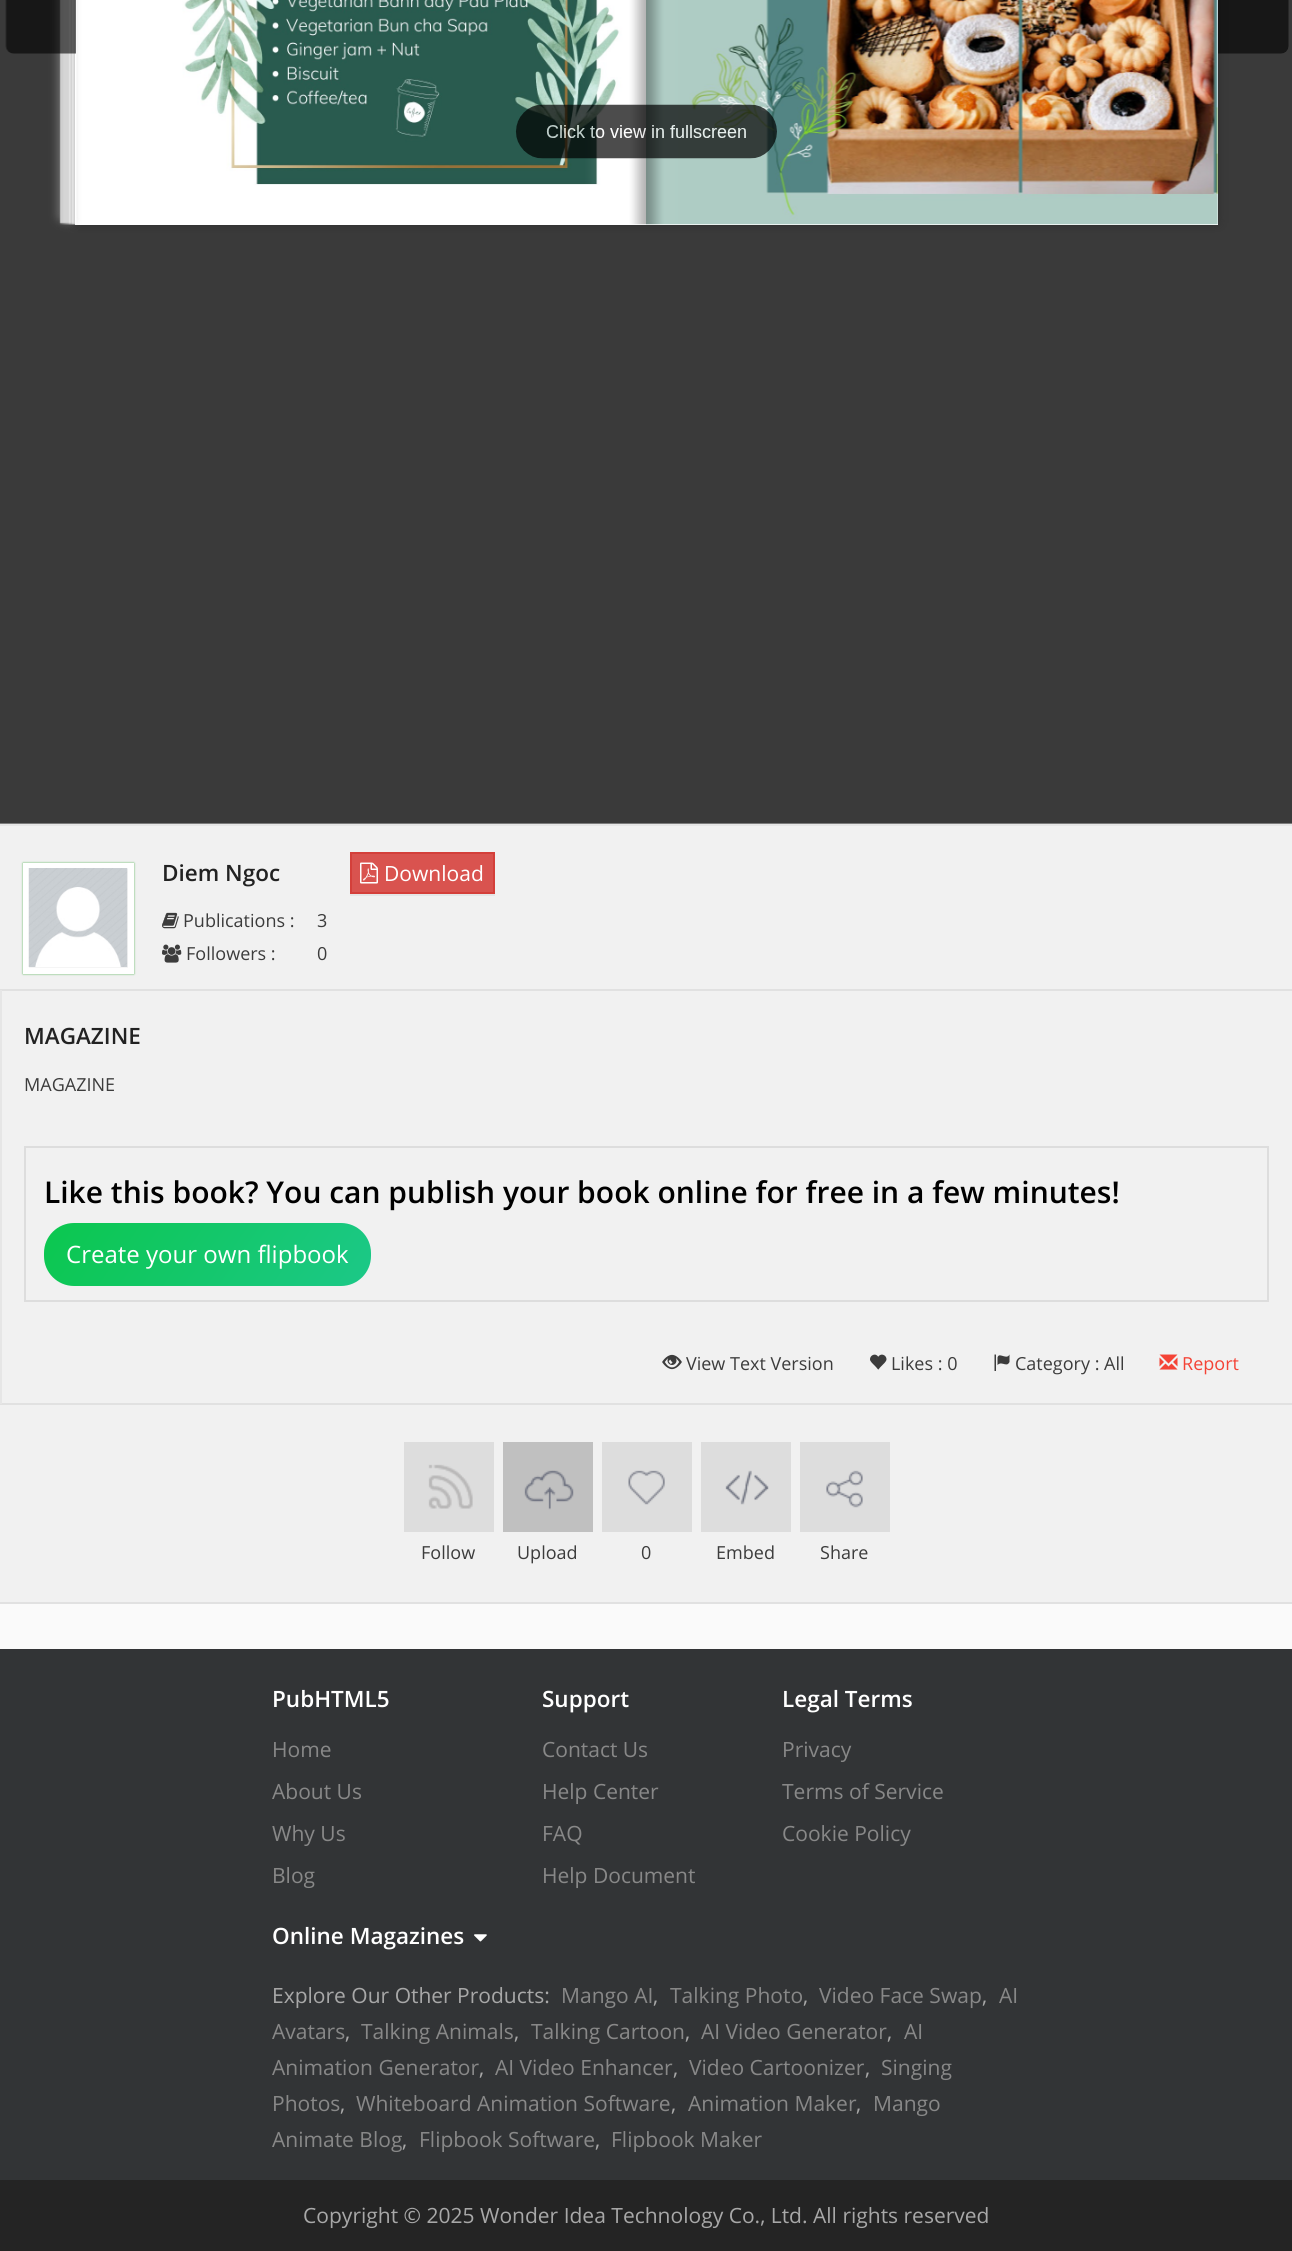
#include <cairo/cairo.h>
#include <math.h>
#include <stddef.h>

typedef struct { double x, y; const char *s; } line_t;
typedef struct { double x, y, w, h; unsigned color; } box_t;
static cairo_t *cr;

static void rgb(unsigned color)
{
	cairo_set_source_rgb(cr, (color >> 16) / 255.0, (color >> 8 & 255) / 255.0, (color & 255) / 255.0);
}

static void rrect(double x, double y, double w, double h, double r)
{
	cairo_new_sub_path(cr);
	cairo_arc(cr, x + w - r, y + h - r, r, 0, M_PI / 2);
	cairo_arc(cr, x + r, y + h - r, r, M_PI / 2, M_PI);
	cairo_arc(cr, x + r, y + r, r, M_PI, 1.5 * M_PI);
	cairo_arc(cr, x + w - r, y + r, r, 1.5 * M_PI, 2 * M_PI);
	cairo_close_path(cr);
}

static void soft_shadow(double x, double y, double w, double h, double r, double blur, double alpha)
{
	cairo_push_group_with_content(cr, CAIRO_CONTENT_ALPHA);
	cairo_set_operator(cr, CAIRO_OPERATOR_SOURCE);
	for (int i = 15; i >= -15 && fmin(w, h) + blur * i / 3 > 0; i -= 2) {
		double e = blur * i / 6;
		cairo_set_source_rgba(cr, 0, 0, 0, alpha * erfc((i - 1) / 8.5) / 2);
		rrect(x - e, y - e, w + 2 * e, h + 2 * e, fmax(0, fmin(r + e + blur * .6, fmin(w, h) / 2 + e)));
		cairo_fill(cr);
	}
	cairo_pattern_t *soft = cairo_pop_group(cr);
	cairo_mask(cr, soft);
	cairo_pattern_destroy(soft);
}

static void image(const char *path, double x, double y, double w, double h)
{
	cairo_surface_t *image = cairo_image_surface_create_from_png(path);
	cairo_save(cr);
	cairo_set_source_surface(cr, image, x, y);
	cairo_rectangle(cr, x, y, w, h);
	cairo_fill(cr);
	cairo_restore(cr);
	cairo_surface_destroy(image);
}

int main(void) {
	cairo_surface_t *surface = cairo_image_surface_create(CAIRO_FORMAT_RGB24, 1292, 2251);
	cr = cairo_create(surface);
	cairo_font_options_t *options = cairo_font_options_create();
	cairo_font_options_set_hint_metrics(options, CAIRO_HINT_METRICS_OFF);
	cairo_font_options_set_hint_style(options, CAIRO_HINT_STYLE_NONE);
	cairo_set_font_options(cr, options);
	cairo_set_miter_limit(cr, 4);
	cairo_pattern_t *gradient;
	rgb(0x7c7c7c);
	cairo_paint(cr);
	image("img/1.png", 0, 0, 1292, 823);
	{
		static const box_t items[] = {
			{0, 1604, 1292, 45, 0xfafafa},
			{0, 826, 1292, 776, 0xf1f1f1},
			{0, 824, 1292, 2, 0xe6e6e6},
			{0, 989, 1292, 2, 0xe1e1e1},
		};
		for (size_t i = 0; i < sizeof items / sizeof *items; i++) {
			rgb(items[i].color);
			cairo_rectangle(cr, items[i].x, items[i].y, items[i].w, items[i].h);
			cairo_fill(cr);
		}
	}
	rgb(0x5cb85c);
	soft_shadow(23, 863, 111, 111, 0, 1, 1);
	rgb(0xf5f5f5);
	cairo_rectangle(cr, 26, 866, 105, 105);
	cairo_fill_preserve(cr);
	rgb(0xffffff);
	cairo_set_line_width(cr, 6);
	cairo_stroke(cr);
	image("img/2.png", 28, 868, 100, 99);
	rgb(0xe5e5e5);
	cairo_rectangle(cr, 350, 894, 145, 2);
	cairo_fill(cr);
	rgb(0xd9534f);
	cairo_rectangle(cr, 351, 853, 143, 40);
	cairo_fill_preserve(cr);
	rgb(0xd43f3a);
	cairo_set_line_width(cr, 2);
	cairo_stroke(cr);
	image("img/3.png", 360, 862, 18, 22);
	image("img/4.png", 162, 912, 17, 17);
	image("img/5.png", 162, 944, 20, 19);
	rgb(0xe1e1e1);
	cairo_rectangle(cr, 0, 1403, 1292, 2);
	cairo_fill(cr);
	rgb(0xe6e6e6);
	cairo_rectangle(cr, 0, 990, 2, 414);
	cairo_fill(cr);
	cairo_rectangle(cr, 25, 1147, 1243, 154);
	rgb(0xdddddd);
	cairo_stroke(cr);
	gradient = cairo_pattern_create_linear(82, 1167, 332, 1341);
	cairo_pattern_add_color_stop_rgba(gradient, 0, 0.043, 0.78, 0.306, 1);
	cairo_pattern_add_color_stop_rgba(gradient, 1, 0.11, 0.784, 0.533, 1);
	cairo_set_source(cr, gradient);
	cairo_pattern_destroy(gradient);
	rrect(44, 1223, 327, 63, 30);
	cairo_fill(cr);
	image("img/6.png", 662, 1354, 20, 16);
	image("img/7.png", 870, 1354, 17, 16);
	image("img/8.png", 994, 1354, 16, 17);
	image("img/9.png", 1159, 1354, 19, 16);
	rgb(0xe1e1e1);
	cairo_rectangle(cr, 0, 1602, 1292, 2);
	cairo_fill(cr);
	rgb(0xdddddd);
	cairo_rectangle(cr, 404, 1442, 90, 90);
	cairo_fill(cr);
	image("img/10.png", 428, 1464, 45, 45);
	rgb(0xc0c0c0);
	cairo_rectangle(cr, 503, 1442, 90, 90);
	cairo_fill(cr);
	image("img/11.png", 524, 1470, 50, 40);
	rgb(0xdddddd);
	cairo_rectangle(cr, 602, 1442, 90, 90);
	cairo_fill(cr);
	image("img/12.png", 628, 1470, 37, 35);
	cairo_rectangle(cr, 701, 1442, 90, 90);
	cairo_fill(cr);
	image("img/13.png", 725, 1470, 44, 35);
	cairo_rectangle(cr, 800, 1442, 90, 90);
	cairo_fill(cr);
	image("img/14.png", 826, 1470, 37, 38);
	rgb(0x323436);
	cairo_rectangle(cr, 0, 1649, 1292, 531);
	cairo_fill(cr);
	image("img/15.png", 474, 1934, 13, 8);
	rgb(0x242424);
	cairo_rectangle(cr, 0, 2180, 1292, 71);
	cairo_fill(cr);
	cairo_select_font_face(cr, "Open Sans SemiBold", CAIRO_FONT_SLANT_NORMAL, CAIRO_FONT_WEIGHT_NORMAL);
	cairo_set_font_size(cr, 22.5);
	rgb(0x222222);
	cairo_move_to(cr, 162, 881);
	cairo_show_text(cr, "Diem Ngoc");
	cairo_select_font_face(cr, "Open Sans", CAIRO_FONT_SLANT_NORMAL, CAIRO_FONT_WEIGHT_NORMAL);
	cairo_set_font_size(cr, 21);
	rgb(0xffffff);
	cairo_move_to(cr, 384, 881);
	cairo_show_text(cr, "Download");
	cairo_set_font_size(cr, 18);
	rgb(0x3c3c3c);
	{
		static const line_t items[] = {
			{183, 927, "Publications :"},
			{317, 927, "3"},
			{186, 960, "Followers :"},
			{317, 960, "0"},
		};
		for (size_t i = 0; i < sizeof items / sizeof *items; i++) {
			cairo_move_to(cr, items[i].x, items[i].y);
			cairo_show_text(cr, items[i].s);
		}
	}
	cairo_select_font_face(cr, "Open Sans SemiBold", CAIRO_FONT_SLANT_NORMAL, CAIRO_FONT_WEIGHT_NORMAL);
	cairo_set_font_size(cr, 22.5);
	rgb(0x222222);
	cairo_move_to(cr, 24, 1044);
	cairo_show_text(cr, "MAGAZINE");
	cairo_select_font_face(cr, "Open Sans", CAIRO_FONT_SLANT_NORMAL, CAIRO_FONT_WEIGHT_NORMAL);
	cairo_set_font_size(cr, 18);
	rgb(0x3c3c3c);
	cairo_move_to(cr, 24, 1091);
	cairo_show_text(cr, "MAGAZINE");
	cairo_select_font_face(cr, "Open Sans SemiBold", CAIRO_FONT_SLANT_NORMAL, CAIRO_FONT_WEIGHT_NORMAL);
	cairo_set_font_size(cr, 30);
	rgb(0x000000);
	cairo_move_to(cr, 44, 1203);
	cairo_show_text(cr, "Like this book? You can publish your book online for free in a few minutes!");
	cairo_select_font_face(cr, "Open Sans", CAIRO_FONT_SLANT_NORMAL, CAIRO_FONT_WEIGHT_NORMAL);
	cairo_set_font_size(cr, 24);
	rgb(0xffffff);
	cairo_move_to(cr, 66, 1263);
	cairo_show_text(cr, "Create your own flipbook");
	cairo_set_font_size(cr, 18);
	rgb(0x3c3c3c);
	{
		static const line_t items[] = {
			{686, 1370, "View Text Version"},
			{891, 1370, "Likes : 0"},
			{1015, 1370, "Category : All"},
		};
		for (size_t i = 0; i < sizeof items / sizeof *items; i++) {
			cairo_move_to(cr, items[i].x, items[i].y);
			cairo_show_text(cr, items[i].s);
		}
	}
	rgb(0xf44336);
	cairo_move_to(cr, 1182, 1370);
	cairo_show_text(cr, "Report");
	rgb(0x3c3c3c);
	{
		static const line_t items[] = {
			{421, 1559, "Follow"},
			{517, 1559, "Upload"},
			{641, 1559, "0"},
			{716, 1559, "Embed"},
			{820, 1559, "Share"},
		};
		for (size_t i = 0; i < sizeof items / sizeof *items; i++) {
			cairo_move_to(cr, items[i].x, items[i].y);
			cairo_show_text(cr, items[i].s);
		}
	}
	cairo_select_font_face(cr, "Open Sans SemiBold", CAIRO_FONT_SLANT_NORMAL, CAIRO_FONT_WEIGHT_NORMAL);
	cairo_set_font_size(cr, 22.5);
	rgb(0xffffff);
	cairo_move_to(cr, 272, 1707);
	cairo_show_text(cr, "PubHTML5");
	cairo_select_font_face(cr, "Open Sans", CAIRO_FONT_SLANT_NORMAL, CAIRO_FONT_WEIGHT_NORMAL);
	cairo_set_font_size(cr, 21);
	rgb(0x888888);
	{
		static const line_t items[] = {
			{272, 1757, "Home"},
			{272, 1799, "About Us"},
			{272, 1841, "Why Us"},
			{272, 1883, "Blog"},
		};
		for (size_t i = 0; i < sizeof items / sizeof *items; i++) {
			cairo_move_to(cr, items[i].x, items[i].y);
			cairo_show_text(cr, items[i].s);
		}
	}
	cairo_select_font_face(cr, "Open Sans SemiBold", CAIRO_FONT_SLANT_NORMAL, CAIRO_FONT_WEIGHT_NORMAL);
	cairo_set_font_size(cr, 22.5);
	rgb(0xffffff);
	cairo_move_to(cr, 542, 1707);
	cairo_show_text(cr, "Support");
	cairo_select_font_face(cr, "Open Sans", CAIRO_FONT_SLANT_NORMAL, CAIRO_FONT_WEIGHT_NORMAL);
	cairo_set_font_size(cr, 21);
	rgb(0x888888);
	{
		static const line_t items[] = {
			{542, 1757, "Contact Us"},
			{542, 1799, "Help Center"},
			{542, 1841, "FAQ"},
			{542, 1883, "Help Document"},
		};
		for (size_t i = 0; i < sizeof items / sizeof *items; i++) {
			cairo_move_to(cr, items[i].x, items[i].y);
			cairo_show_text(cr, items[i].s);
		}
	}
	cairo_select_font_face(cr, "Open Sans SemiBold", CAIRO_FONT_SLANT_NORMAL, CAIRO_FONT_WEIGHT_NORMAL);
	cairo_set_font_size(cr, 22.5);
	rgb(0xffffff);
	cairo_move_to(cr, 782, 1707);
	cairo_show_text(cr, "Legal Terms");
	cairo_select_font_face(cr, "Open Sans", CAIRO_FONT_SLANT_NORMAL, CAIRO_FONT_WEIGHT_NORMAL);
	cairo_set_font_size(cr, 21);
	rgb(0x888888);
	{
		static const line_t items[] = {
			{782, 1757, "Privacy"},
			{782, 1799, "Terms of Service"},
			{782, 1841, "Cookie Policy"},
		};
		for (size_t i = 0; i < sizeof items / sizeof *items; i++) {
			cairo_move_to(cr, items[i].x, items[i].y);
			cairo_show_text(cr, items[i].s);
		}
	}
	cairo_select_font_face(cr, "Open Sans SemiBold", CAIRO_FONT_SLANT_NORMAL, CAIRO_FONT_WEIGHT_NORMAL);
	cairo_set_font_size(cr, 22.5);
	rgb(0xffffff);
	cairo_move_to(cr, 272, 1944);
	cairo_show_text(cr, "Online Magazines");
	cairo_select_font_face(cr, "Open Sans", CAIRO_FONT_SLANT_NORMAL, CAIRO_FONT_WEIGHT_NORMAL);
	cairo_set_font_size(cr, 21);
	rgb(0xa8a8a8);
	cairo_move_to(cr, 272, 2003);
	cairo_show_text(cr, "Explore Our Other Products:");
	rgb(0x888888);
	cairo_move_to(cr, 561, 2003);
	cairo_show_text(cr, "Mango AI");
	rgb(0xa8a8a8);
	cairo_move_to(cr, 653, 2003);
	cairo_show_text(cr, ",");
	rgb(0x888888);
	cairo_move_to(cr, 670, 2003);
	cairo_show_text(cr, "Talking Photo");
	rgb(0xa8a8a8);
	cairo_move_to(cr, 803, 2003);
	cairo_show_text(cr, ",");
	rgb(0x888888);
	cairo_move_to(cr, 819, 2003);
	cairo_show_text(cr, "Video Face Swap");
	rgb(0xa8a8a8);
	cairo_move_to(cr, 982, 2003);
	cairo_show_text(cr, ",");
	rgb(0x888888);
	cairo_move_to(cr, 999, 2003);
	cairo_show_text(cr, "AI");
	cairo_move_to(cr, 272, 2039);
	cairo_show_text(cr, "Avatars");
	rgb(0xa8a8a8);
	cairo_move_to(cr, 345, 2039);
	cairo_show_text(cr, ",");
	rgb(0x888888);
	cairo_move_to(cr, 361, 2039);
	cairo_show_text(cr, "Talking Animals");
	rgb(0xa8a8a8);
	cairo_move_to(cr, 514, 2039);
	cairo_show_text(cr, ",");
	rgb(0x888888);
	cairo_move_to(cr, 531, 2039);
	cairo_show_text(cr, "Talking Cartoon");
	rgb(0xa8a8a8);
	cairo_move_to(cr, 685, 2039);
	cairo_show_text(cr, ",");
	rgb(0x888888);
	cairo_move_to(cr, 701, 2039);
	cairo_show_text(cr, "AI Video Generator");
	rgb(0xa8a8a8);
	cairo_move_to(cr, 887, 2039);
	cairo_show_text(cr, ",");
	rgb(0x888888);
	cairo_move_to(cr, 904, 2039);
	cairo_show_text(cr, "AI");
	cairo_move_to(cr, 272, 2075);
	cairo_show_text(cr, "Animation Generator");
	rgb(0xa8a8a8);
	cairo_move_to(cr, 479, 2075);
	cairo_show_text(cr, ",");
	rgb(0x888888);
	cairo_move_to(cr, 495, 2075);
	cairo_show_text(cr, "AI Video Enhancer");
	rgb(0xa8a8a8);
	cairo_move_to(cr, 673, 2075);
	cairo_show_text(cr, ",");
	rgb(0x888888);
	cairo_move_to(cr, 689, 2075);
	cairo_show_text(cr, "Video Cartoonizer");
	rgb(0xa8a8a8);
	cairo_move_to(cr, 865, 2075);
	cairo_show_text(cr, ",");
	rgb(0x888888);
	cairo_move_to(cr, 881, 2075);
	cairo_show_text(cr, "Singing");
	cairo_move_to(cr, 272, 2111);
	cairo_show_text(cr, "Photos");
	rgb(0xa8a8a8);
	cairo_move_to(cr, 340, 2111);
	cairo_show_text(cr, ",");
	rgb(0x888888);
	cairo_move_to(cr, 356, 2111);
	cairo_show_text(cr, "Whiteboard Animation Software");
	rgb(0xa8a8a8);
	cairo_move_to(cr, 671, 2111);
	cairo_show_text(cr, ",");
	rgb(0x888888);
	cairo_move_to(cr, 688, 2111);
	cairo_show_text(cr, "Animation Maker");
	rgb(0xa8a8a8);
	cairo_move_to(cr, 856, 2111);
	cairo_show_text(cr, ",");
	rgb(0x888888);
	cairo_move_to(cr, 873, 2111);
	cairo_show_text(cr, "Mango");
	cairo_move_to(cr, 272, 2147);
	cairo_show_text(cr, "Animate Blog");
	rgb(0xa8a8a8);
	cairo_move_to(cr, 402, 2147);
	cairo_show_text(cr, ",");
	rgb(0x888888);
	cairo_move_to(cr, 419, 2147);
	cairo_show_text(cr, "Flipbook Software");
	rgb(0xa8a8a8);
	cairo_move_to(cr, 595, 2147);
	cairo_show_text(cr, ",");
	rgb(0x888888);
	cairo_move_to(cr, 611, 2147);
	cairo_show_text(cr, "Flipbook Maker");
	rgb(0xa8a8a8);
	cairo_move_to(cr, 303, 2223);
	cairo_show_text(cr, "Copyright © 2025 Wonder Idea Technology Co., Ltd. All rights reserved");
	cairo_surface_write_to_png(surface, "page.png");
	cairo_font_options_destroy(options);
	cairo_destroy(cr);
	cairo_surface_destroy(surface);
	return 0;
}
